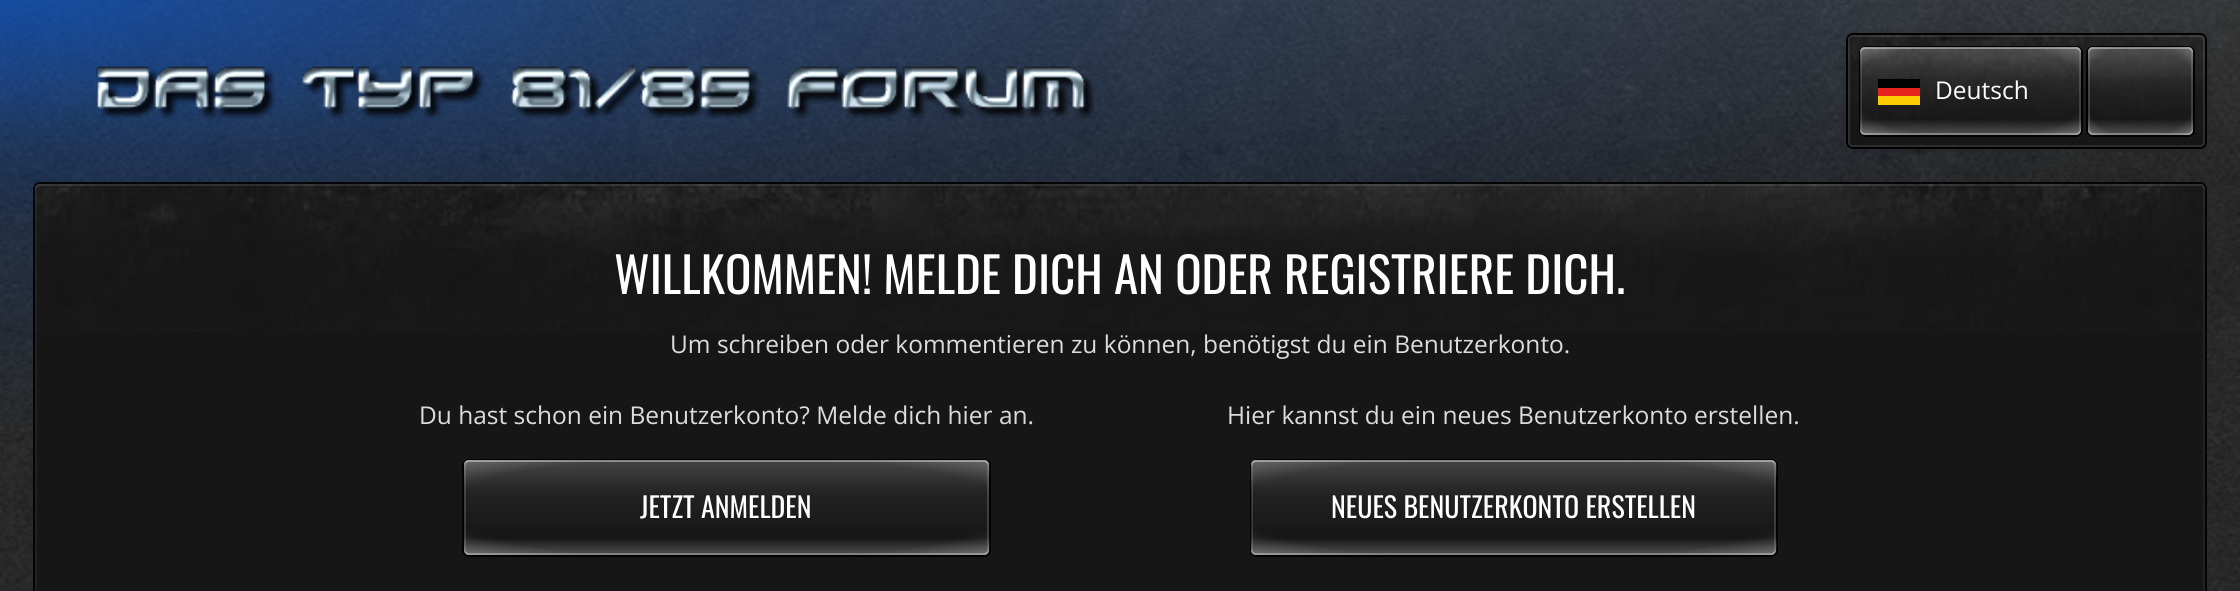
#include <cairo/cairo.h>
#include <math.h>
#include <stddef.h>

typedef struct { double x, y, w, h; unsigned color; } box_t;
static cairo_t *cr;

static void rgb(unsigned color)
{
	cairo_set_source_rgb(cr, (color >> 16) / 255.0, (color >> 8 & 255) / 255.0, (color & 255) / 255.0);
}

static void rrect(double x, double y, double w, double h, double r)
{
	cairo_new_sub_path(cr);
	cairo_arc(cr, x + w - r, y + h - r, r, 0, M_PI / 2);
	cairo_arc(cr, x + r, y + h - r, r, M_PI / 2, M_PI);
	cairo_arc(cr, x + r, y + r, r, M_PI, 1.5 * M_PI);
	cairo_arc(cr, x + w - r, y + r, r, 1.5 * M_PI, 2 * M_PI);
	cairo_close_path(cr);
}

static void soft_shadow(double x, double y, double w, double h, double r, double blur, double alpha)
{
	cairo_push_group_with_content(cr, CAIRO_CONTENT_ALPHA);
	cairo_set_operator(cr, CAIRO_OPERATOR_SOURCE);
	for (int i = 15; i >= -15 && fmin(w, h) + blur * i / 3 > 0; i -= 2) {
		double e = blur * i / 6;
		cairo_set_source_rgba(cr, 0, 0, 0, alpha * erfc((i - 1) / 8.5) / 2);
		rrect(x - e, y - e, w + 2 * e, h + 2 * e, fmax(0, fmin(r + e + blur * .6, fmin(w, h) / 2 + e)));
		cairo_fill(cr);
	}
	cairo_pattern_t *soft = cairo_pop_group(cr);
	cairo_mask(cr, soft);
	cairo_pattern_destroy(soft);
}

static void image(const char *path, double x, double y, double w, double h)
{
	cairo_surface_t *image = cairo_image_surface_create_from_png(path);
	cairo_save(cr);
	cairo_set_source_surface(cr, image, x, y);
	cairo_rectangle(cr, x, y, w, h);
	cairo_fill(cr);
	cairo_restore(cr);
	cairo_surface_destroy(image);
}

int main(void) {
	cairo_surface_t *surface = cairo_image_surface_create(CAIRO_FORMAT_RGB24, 2240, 591);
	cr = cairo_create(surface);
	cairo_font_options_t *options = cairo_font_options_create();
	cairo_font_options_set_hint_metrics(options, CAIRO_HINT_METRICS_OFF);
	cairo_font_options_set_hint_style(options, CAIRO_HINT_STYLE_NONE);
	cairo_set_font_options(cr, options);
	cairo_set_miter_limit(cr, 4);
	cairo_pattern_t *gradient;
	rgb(0xffffff);
	cairo_paint(cr);
	image("img/1.png", 0, 0, 2240, 591);
	image("img/2.png", 96, 64, 999, 55);
	rgb(0x000000);
	soft_shadow(1848, 35, 357, 112, 5, 4.5, 0.25);
	rrect(1847, 34, 359, 114, 6);
	rgb(0x000000);
	cairo_stroke(cr);
	rgb(0x161616);
	rrect(1848, 35, 357, 112, 5);
	cairo_fill(cr);
	image("img/3.png", 1848, 35, 357, 98);
	rrect(1849, 36, 355, 110, 4);
	cairo_set_source_rgba(cr, 1, 1, 1, 0.1);
	cairo_stroke(cr);
	rrect(1860, 47, 222, 89, 6);
	rgb(0x000000);
	cairo_stroke(cr);
	gradient = cairo_pattern_create_linear(1971, 47, 1971, 135);
	cairo_pattern_add_color_stop_rgba(gradient, 0, 1, 1, 1, 0.2);
	cairo_pattern_add_color_stop_rgba(gradient, 0.37, 1, 1, 1, 0.05);
	cairo_pattern_add_color_stop_rgba(gradient, 0.82, 1, 1, 1, 0);
	cairo_pattern_add_color_stop_rgba(gradient, 1, 1, 1, 1, 0.25);
	cairo_set_source(cr, gradient);
	cairo_pattern_destroy(gradient);
	rrect(1860, 47, 221, 88, 5);
	cairo_fill(cr);
	gradient = cairo_pattern_create_radial(0, 0, 0, 0, 0, 1);
	cairo_pattern_set_matrix(gradient, &(cairo_matrix_t){1.0 / 156, 0, 0, 1.0 / 62, -1.0 * 1971 / 156, -1.0 * 91 / 62});
	cairo_pattern_add_color_stop_rgba(gradient, 0, 0, 0, 0, 0);
	cairo_pattern_add_color_stop_rgba(gradient, 0.77, 1, 1, 1, 0);
	cairo_pattern_add_color_stop_rgba(gradient, 1, 1, 1, 1, 0.2);
	cairo_set_source(cr, gradient);
	cairo_pattern_destroy(gradient);
	rrect(1860, 47, 221, 88, 5);
	cairo_fill(cr);
	cairo_set_source_rgba(cr, 1, 1, 1, 0.15);
	cairo_new_path(cr);
	cairo_move_to(cr, 2074, 135);
	cairo_curve_to(cr, 2084, 135, 2081, 125, 2081, 117);
	cairo_line_to(cr, 2081, 65);
	cairo_curve_to(cr, 2081, 57, 2084, 47, 2074, 47);
	cairo_curve_to(cr, 2077, 47, 2079, 50, 2079, 52);
	cairo_line_to(cr, 2079, 130);
	cairo_curve_to(cr, 2079, 132, 2077, 135, 2074, 135);
	cairo_close_path(cr);
	cairo_fill(cr);
	cairo_new_path(cr);
	cairo_move_to(cr, 1865, 47);
	cairo_curve_to(cr, 1862, 47, 1860, 49, 1860, 52);
	cairo_line_to(cr, 1860, 130);
	cairo_curve_to(cr, 1860, 133, 1862, 135, 1865, 135);
	cairo_line_to(cr, 1867, 135);
	cairo_curve_to(cr, 1864, 135, 1862, 132, 1862, 130);
	cairo_line_to(cr, 1862, 52);
	cairo_curve_to(cr, 1862, 50, 1864, 47, 1867, 47);
	cairo_close_path(cr);
	cairo_fill(cr);
	cairo_set_source_rgba(cr, 1, 1, 1, 0.3);
	cairo_new_path(cr);
	cairo_move_to(cr, 1860, 128);
	cairo_line_to(cr, 1860, 130);
	cairo_curve_to(cr, 1860, 133, 1862, 135, 1865, 135);
	cairo_line_to(cr, 2076, 135);
	cairo_curve_to(cr, 2079, 135, 2081, 133, 2081, 130);
	cairo_line_to(cr, 2081, 128);
	cairo_curve_to(cr, 2081, 131, 2078, 133, 2076, 133);
	cairo_line_to(cr, 1866, 133);
	cairo_curve_to(cr, 1863, 133, 1860, 131, 1860, 128);
	cairo_close_path(cr);
	cairo_fill(cr);
	cairo_set_source_rgba(cr, 1, 1, 1, 0.4);
	cairo_new_path(cr);
	cairo_move_to(cr, 1866, 49);
	cairo_line_to(cr, 2076, 49);
	cairo_curve_to(cr, 2078, 49, 2081, 51, 2081, 54);
	cairo_line_to(cr, 2081, 52);
	cairo_curve_to(cr, 2081, 49, 2079, 47, 2076, 47);
	cairo_line_to(cr, 1865, 47);
	cairo_curve_to(cr, 1862, 47, 1860, 49, 1860, 52);
	cairo_line_to(cr, 1860, 54);
	cairo_curve_to(cr, 1860, 51, 1863, 49, 1866, 49);
	cairo_close_path(cr);
	cairo_fill(cr);
	{
		static const box_t items[] = {
			{1878, 79, 42, 9, 0x010202},
			{1878, 96, 42, 9, 0xffcc04},
			{1878, 88, 42, 8, 0xe52420},
		};
		for (size_t i = 0; i < sizeof items / sizeof *items; i++) {
			rgb(items[i].color);
			cairo_rectangle(cr, items[i].x, items[i].y, items[i].w, items[i].h);
			cairo_fill(cr);
		}
	}
	rrect(2087, 47, 107, 89, 6);
	rgb(0x000000);
	cairo_stroke(cr);
	gradient = cairo_pattern_create_linear(2140, 47, 2140, 135);
	cairo_pattern_add_color_stop_rgba(gradient, 0, 1, 1, 1, 0.2);
	cairo_pattern_add_color_stop_rgba(gradient, 0.37, 1, 1, 1, 0.05);
	cairo_pattern_add_color_stop_rgba(gradient, 0.82, 1, 1, 1, 0);
	cairo_pattern_add_color_stop_rgba(gradient, 1, 1, 1, 1, 0.25);
	cairo_set_source(cr, gradient);
	cairo_pattern_destroy(gradient);
	rrect(2088, 47, 105, 88, 5);
	cairo_fill(cr);
	gradient = cairo_pattern_create_radial(0, 0, 0, 0, 0, 1);
	cairo_pattern_set_matrix(gradient, &(cairo_matrix_t){1.0 / 74, 0, 0, 1.0 / 62, -1.0 * 2140 / 74, -1.0 * 91 / 62});
	cairo_pattern_add_color_stop_rgba(gradient, 0, 0, 0, 0, 0);
	cairo_pattern_add_color_stop_rgba(gradient, 0.77, 1, 1, 1, 0);
	cairo_pattern_add_color_stop_rgba(gradient, 1, 1, 1, 1, 0.2);
	cairo_set_source(cr, gradient);
	cairo_pattern_destroy(gradient);
	rrect(2088, 47, 105, 88, 5);
	cairo_fill(cr);
	cairo_set_source_rgba(cr, 1, 1, 1, 0.15);
	cairo_new_path(cr);
	cairo_move_to(cr, 2186, 135);
	cairo_curve_to(cr, 2196, 135, 2193, 125, 2193, 117);
	cairo_line_to(cr, 2193, 65);
	cairo_curve_to(cr, 2193, 57, 2196, 47, 2186, 47);
	cairo_curve_to(cr, 2189, 47, 2191, 50, 2191, 52);
	cairo_line_to(cr, 2191, 130);
	cairo_curve_to(cr, 2191, 132, 2189, 135, 2186, 135);
	cairo_close_path(cr);
	cairo_fill(cr);
	cairo_new_path(cr);
	cairo_move_to(cr, 2093, 47);
	cairo_curve_to(cr, 2090, 47, 2088, 49, 2088, 52);
	cairo_line_to(cr, 2088, 130);
	cairo_curve_to(cr, 2088, 133, 2090, 135, 2093, 135);
	cairo_line_to(cr, 2095, 135);
	cairo_curve_to(cr, 2092, 135, 2090, 132, 2090, 130);
	cairo_line_to(cr, 2090, 52);
	cairo_curve_to(cr, 2090, 50, 2092, 47, 2095, 47);
	cairo_close_path(cr);
	cairo_fill(cr);
	cairo_set_source_rgba(cr, 1, 1, 1, 0.3);
	cairo_new_path(cr);
	cairo_move_to(cr, 2088, 128);
	cairo_line_to(cr, 2088, 130);
	cairo_curve_to(cr, 2088, 133, 2090, 135, 2093, 135);
	cairo_line_to(cr, 2188, 135);
	cairo_curve_to(cr, 2191, 135, 2193, 133, 2193, 130);
	cairo_line_to(cr, 2193, 128);
	cairo_curve_to(cr, 2193, 131, 2190, 133, 2188, 133);
	cairo_line_to(cr, 2093, 133);
	cairo_curve_to(cr, 2090, 133, 2088, 131, 2088, 128);
	cairo_close_path(cr);
	cairo_fill(cr);
	cairo_set_source_rgba(cr, 1, 1, 1, 0.4);
	cairo_new_path(cr);
	cairo_move_to(cr, 2093, 49);
	cairo_line_to(cr, 2188, 49);
	cairo_curve_to(cr, 2190, 49, 2193, 51, 2193, 54);
	cairo_line_to(cr, 2193, 52);
	cairo_curve_to(cr, 2193, 49, 2191, 47, 2188, 47);
	cairo_line_to(cr, 2093, 47);
	cairo_curve_to(cr, 2090, 47, 2088, 49, 2088, 52);
	cairo_line_to(cr, 2088, 54);
	cairo_curve_to(cr, 2088, 51, 2090, 49, 2093, 49);
	cairo_close_path(cr);
	cairo_fill(cr);
	rrect(34, 183, 2172, 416, 6);
	cairo_set_source_rgba(cr, 0, 0, 0, 0.9);
	cairo_stroke(cr);
	rgb(0x161616);
	rrect(35, 184, 2170, 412, 5);
	cairo_fill(cr);
	image("img/4.png", 35, 184, 2170, 148);
	cairo_set_source_rgba(cr, 1, 1, 1, 0.05);
	cairo_new_path(cr);
	cairo_move_to(cr, 2198, 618);
	cairo_curve_to(cr, 2201, 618, 2205, 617, 2205, 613);
	cairo_line_to(cr, 2205, 189);
	cairo_curve_to(cr, 2205, 185, 2201, 184, 2198, 184);
	cairo_curve_to(cr, 2201, 184, 2203, 186, 2203, 189);
	cairo_line_to(cr, 2203, 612);
	cairo_curve_to(cr, 2203, 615, 2201, 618, 2198, 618);
	cairo_close_path(cr);
	cairo_fill(cr);
	cairo_new_path(cr);
	cairo_move_to(cr, 40, 184);
	cairo_curve_to(cr, 37, 184, 35, 186, 35, 189);
	cairo_line_to(cr, 35, 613);
	cairo_curve_to(cr, 35, 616, 37, 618, 40, 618);
	cairo_line_to(cr, 42, 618);
	cairo_curve_to(cr, 39, 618, 37, 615, 37, 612);
	cairo_line_to(cr, 37, 189);
	cairo_curve_to(cr, 37, 186, 39, 184, 42, 184);
	cairo_close_path(cr);
	cairo_fill(cr);
	cairo_set_source_rgba(cr, 1, 1, 1, 0.1);
	cairo_new_path(cr);
	cairo_move_to(cr, 40, 186);
	cairo_line_to(cr, 2200, 186);
	cairo_curve_to(cr, 2203, 186, 2205, 188, 2205, 191);
	cairo_line_to(cr, 2205, 189);
	cairo_curve_to(cr, 2205, 186, 2203, 184, 2200, 184);
	cairo_line_to(cr, 40, 184);
	cairo_curve_to(cr, 37, 184, 35, 186, 35, 189);
	cairo_line_to(cr, 35, 191);
	cairo_curve_to(cr, 35, 188, 37, 186, 40, 186);
	cairo_close_path(cr);
	cairo_fill(cr);
	rrect(463, 460, 527, 96, 6);
	rgb(0x000000);
	cairo_stroke(cr);
	gradient = cairo_pattern_create_linear(726, 460, 726, 555);
	cairo_pattern_add_color_stop_rgba(gradient, 0, 1, 1, 1, 0.2);
	cairo_pattern_add_color_stop_rgba(gradient, 0.37, 1, 1, 1, 0.05);
	cairo_pattern_add_color_stop_rgba(gradient, 0.82, 1, 1, 1, 0);
	cairo_pattern_add_color_stop_rgba(gradient, 1, 1, 1, 1, 0.25);
	cairo_set_source(cr, gradient);
	cairo_pattern_destroy(gradient);
	rrect(464, 460, 525, 95, 5);
	cairo_fill(cr);
	gradient = cairo_pattern_create_radial(0, 0, 0, 0, 0, 1);
	cairo_pattern_set_matrix(gradient, &(cairo_matrix_t){1.0 / 371, 0, 0, 1.0 / 67, -1.0 * 726 / 371, -1.0 * 508 / 67});
	cairo_pattern_add_color_stop_rgba(gradient, 0, 0, 0, 0, 0);
	cairo_pattern_add_color_stop_rgba(gradient, 0.77, 1, 1, 1, 0);
	cairo_pattern_add_color_stop_rgba(gradient, 1, 1, 1, 1, 0.2);
	cairo_set_source(cr, gradient);
	cairo_pattern_destroy(gradient);
	rrect(464, 460, 525, 95, 5);
	cairo_fill(cr);
	cairo_set_source_rgba(cr, 1, 1, 1, 0.15);
	cairo_new_path(cr);
	cairo_move_to(cr, 982, 555);
	cairo_curve_to(cr, 993, 555, 989, 544, 989, 536);
	cairo_line_to(cr, 989, 479);
	cairo_curve_to(cr, 989, 471, 993, 460, 982, 460);
	cairo_curve_to(cr, 985, 460, 987, 463, 987, 466);
	cairo_line_to(cr, 987, 550);
	cairo_curve_to(cr, 987, 552, 985, 555, 982, 555);
	cairo_close_path(cr);
	cairo_fill(cr);
	cairo_new_path(cr);
	cairo_move_to(cr, 469, 460);
	cairo_curve_to(cr, 466, 460, 464, 462, 464, 465);
	cairo_line_to(cr, 464, 550);
	cairo_curve_to(cr, 464, 553, 466, 555, 469, 555);
	cairo_line_to(cr, 471, 555);
	cairo_curve_to(cr, 468, 555, 466, 552, 466, 550);
	cairo_line_to(cr, 466, 466);
	cairo_curve_to(cr, 466, 463, 468, 460, 471, 460);
	cairo_close_path(cr);
	cairo_fill(cr);
	cairo_set_source_rgba(cr, 1, 1, 1, 0.3);
	cairo_new_path(cr);
	cairo_move_to(cr, 464, 548);
	cairo_line_to(cr, 464, 550);
	cairo_curve_to(cr, 464, 553, 466, 555, 469, 555);
	cairo_line_to(cr, 984, 555);
	cairo_curve_to(cr, 987, 555, 989, 553, 989, 550);
	cairo_line_to(cr, 989, 548);
	cairo_curve_to(cr, 989, 551, 986, 553, 984, 553);
	cairo_line_to(cr, 469, 553);
	cairo_curve_to(cr, 466, 553, 464, 551, 464, 548);
	cairo_close_path(cr);
	cairo_fill(cr);
	cairo_set_source_rgba(cr, 1, 1, 1, 0.4);
	cairo_new_path(cr);
	cairo_move_to(cr, 469, 462);
	cairo_line_to(cr, 984, 462);
	cairo_curve_to(cr, 986, 462, 989, 464, 989, 467);
	cairo_line_to(cr, 989, 465);
	cairo_curve_to(cr, 989, 462, 987, 460, 984, 460);
	cairo_line_to(cr, 469, 460);
	cairo_curve_to(cr, 466, 460, 464, 462, 464, 465);
	cairo_line_to(cr, 464, 467);
	cairo_curve_to(cr, 464, 464, 466, 462, 469, 462);
	cairo_close_path(cr);
	cairo_fill(cr);
	rrect(1251, 460, 526, 96, 6);
	rgb(0x000000);
	cairo_stroke(cr);
	gradient = cairo_pattern_create_linear(1514, 460, 1514, 555);
	cairo_pattern_add_color_stop_rgba(gradient, 0, 1, 1, 1, 0.2);
	cairo_pattern_add_color_stop_rgba(gradient, 0.37, 1, 1, 1, 0.05);
	cairo_pattern_add_color_stop_rgba(gradient, 0.82, 1, 1, 1, 0);
	cairo_pattern_add_color_stop_rgba(gradient, 1, 1, 1, 1, 0.25);
	cairo_set_source(cr, gradient);
	cairo_pattern_destroy(gradient);
	rrect(1251, 460, 525, 95, 5);
	cairo_fill(cr);
	gradient = cairo_pattern_create_radial(0, 0, 0, 0, 0, 1);
	cairo_pattern_set_matrix(gradient, &(cairo_matrix_t){1.0 / 371, 0, 0, 1.0 / 67, -1.0 * 1514 / 371, -1.0 * 508 / 67});
	cairo_pattern_add_color_stop_rgba(gradient, 0, 0, 0, 0, 0);
	cairo_pattern_add_color_stop_rgba(gradient, 0.77, 1, 1, 1, 0);
	cairo_pattern_add_color_stop_rgba(gradient, 1, 1, 1, 1, 0.2);
	cairo_set_source(cr, gradient);
	cairo_pattern_destroy(gradient);
	rrect(1251, 460, 525, 95, 5);
	cairo_fill(cr);
	cairo_set_source_rgba(cr, 1, 1, 1, 0.15);
	cairo_new_path(cr);
	cairo_move_to(cr, 1769, 555);
	cairo_curve_to(cr, 1780, 555, 1776, 544, 1776, 536);
	cairo_line_to(cr, 1776, 479);
	cairo_curve_to(cr, 1776, 471, 1780, 460, 1769, 460);
	cairo_curve_to(cr, 1772, 460, 1774, 463, 1774, 466);
	cairo_line_to(cr, 1774, 550);
	cairo_curve_to(cr, 1774, 552, 1772, 555, 1769, 555);
	cairo_close_path(cr);
	cairo_fill(cr);
	cairo_new_path(cr);
	cairo_move_to(cr, 1256, 460);
	cairo_curve_to(cr, 1253, 460, 1251, 462, 1251, 465);
	cairo_line_to(cr, 1251, 550);
	cairo_curve_to(cr, 1251, 553, 1253, 555, 1256, 555);
	cairo_line_to(cr, 1258, 555);
	cairo_curve_to(cr, 1255, 555, 1253, 552, 1253, 550);
	cairo_line_to(cr, 1253, 466);
	cairo_curve_to(cr, 1253, 463, 1255, 460, 1258, 460);
	cairo_close_path(cr);
	cairo_fill(cr);
	cairo_set_source_rgba(cr, 1, 1, 1, 0.3);
	cairo_new_path(cr);
	cairo_move_to(cr, 1251, 548);
	cairo_line_to(cr, 1251, 550);
	cairo_curve_to(cr, 1251, 553, 1253, 555, 1256, 555);
	cairo_line_to(cr, 1771, 555);
	cairo_curve_to(cr, 1774, 555, 1776, 553, 1776, 550);
	cairo_line_to(cr, 1776, 548);
	cairo_curve_to(cr, 1776, 551, 1774, 553, 1771, 553);
	cairo_line_to(cr, 1256, 553);
	cairo_curve_to(cr, 1254, 553, 1251, 551, 1251, 548);
	cairo_close_path(cr);
	cairo_fill(cr);
	cairo_set_source_rgba(cr, 1, 1, 1, 0.4);
	cairo_new_path(cr);
	cairo_move_to(cr, 1256, 462);
	cairo_line_to(cr, 1771, 462);
	cairo_curve_to(cr, 1774, 462, 1776, 464, 1776, 467);
	cairo_line_to(cr, 1776, 465);
	cairo_curve_to(cr, 1776, 462, 1774, 460, 1771, 460);
	cairo_line_to(cr, 1256, 460);
	cairo_curve_to(cr, 1253, 460, 1251, 462, 1251, 465);
	cairo_line_to(cr, 1251, 467);
	cairo_curve_to(cr, 1251, 464, 1254, 462, 1256, 462);
	cairo_close_path(cr);
	cairo_fill(cr);
	cairo_select_font_face(cr, "Open Sans", CAIRO_FONT_SLANT_NORMAL, CAIRO_FONT_WEIGHT_NORMAL);
	cairo_set_font_size(cr, 24.5);
	rgb(0xffffff);
	cairo_move_to(cr, 1935, 99);
	cairo_show_text(cr, "Deutsch");
	cairo_select_font_face(cr, "Oswald", CAIRO_FONT_SLANT_NORMAL, CAIRO_FONT_WEIGHT_NORMAL);
	cairo_set_font_size(cr, 49);
	cairo_move_to(cr, 614, 294);
	cairo_show_text(cr, "WILLKOMMEN! MELDE DICH AN ODER REGISTRIERE DICH.");
	cairo_select_font_face(cr, "Open Sans", CAIRO_FONT_SLANT_NORMAL, CAIRO_FONT_WEIGHT_NORMAL);
	cairo_set_font_size(cr, 24.5);
	rgb(0xdcdcdc);
	cairo_move_to(cr, 670, 353);
	cairo_show_text(cr, "Um schreiben oder kommentieren zu können, benötigst du ein Benutzerkonto.");
	cairo_move_to(cr, 419, 424);
	cairo_show_text(cr, "Du hast schon ein Benutzerkonto? Melde dich hier an.");
	cairo_select_font_face(cr, "Oswald", CAIRO_FONT_SLANT_NORMAL, CAIRO_FONT_WEIGHT_NORMAL);
	cairo_set_font_size(cr, 28);
	rgb(0xffffff);
	cairo_move_to(cr, 640, 518);
	cairo_show_text(cr, "JETZT ANMELDEN");
	cairo_select_font_face(cr, "Open Sans", CAIRO_FONT_SLANT_NORMAL, CAIRO_FONT_WEIGHT_NORMAL);
	cairo_set_font_size(cr, 24.5);
	rgb(0xdcdcdc);
	cairo_move_to(cr, 1227, 424);
	cairo_show_text(cr, "Hier kannst du ein neues Benutzerkonto erstellen.");
	cairo_select_font_face(cr, "Oswald", CAIRO_FONT_SLANT_NORMAL, CAIRO_FONT_WEIGHT_NORMAL);
	cairo_set_font_size(cr, 28);
	rgb(0xffffff);
	cairo_move_to(cr, 1331, 518);
	cairo_show_text(cr, "NEUES BENUTZERKONTO ERSTELLEN");
	cairo_surface_write_to_png(surface, "page.png");
	cairo_font_options_destroy(options);
	cairo_destroy(cr);
	cairo_surface_destroy(surface);
	return 0;
}
